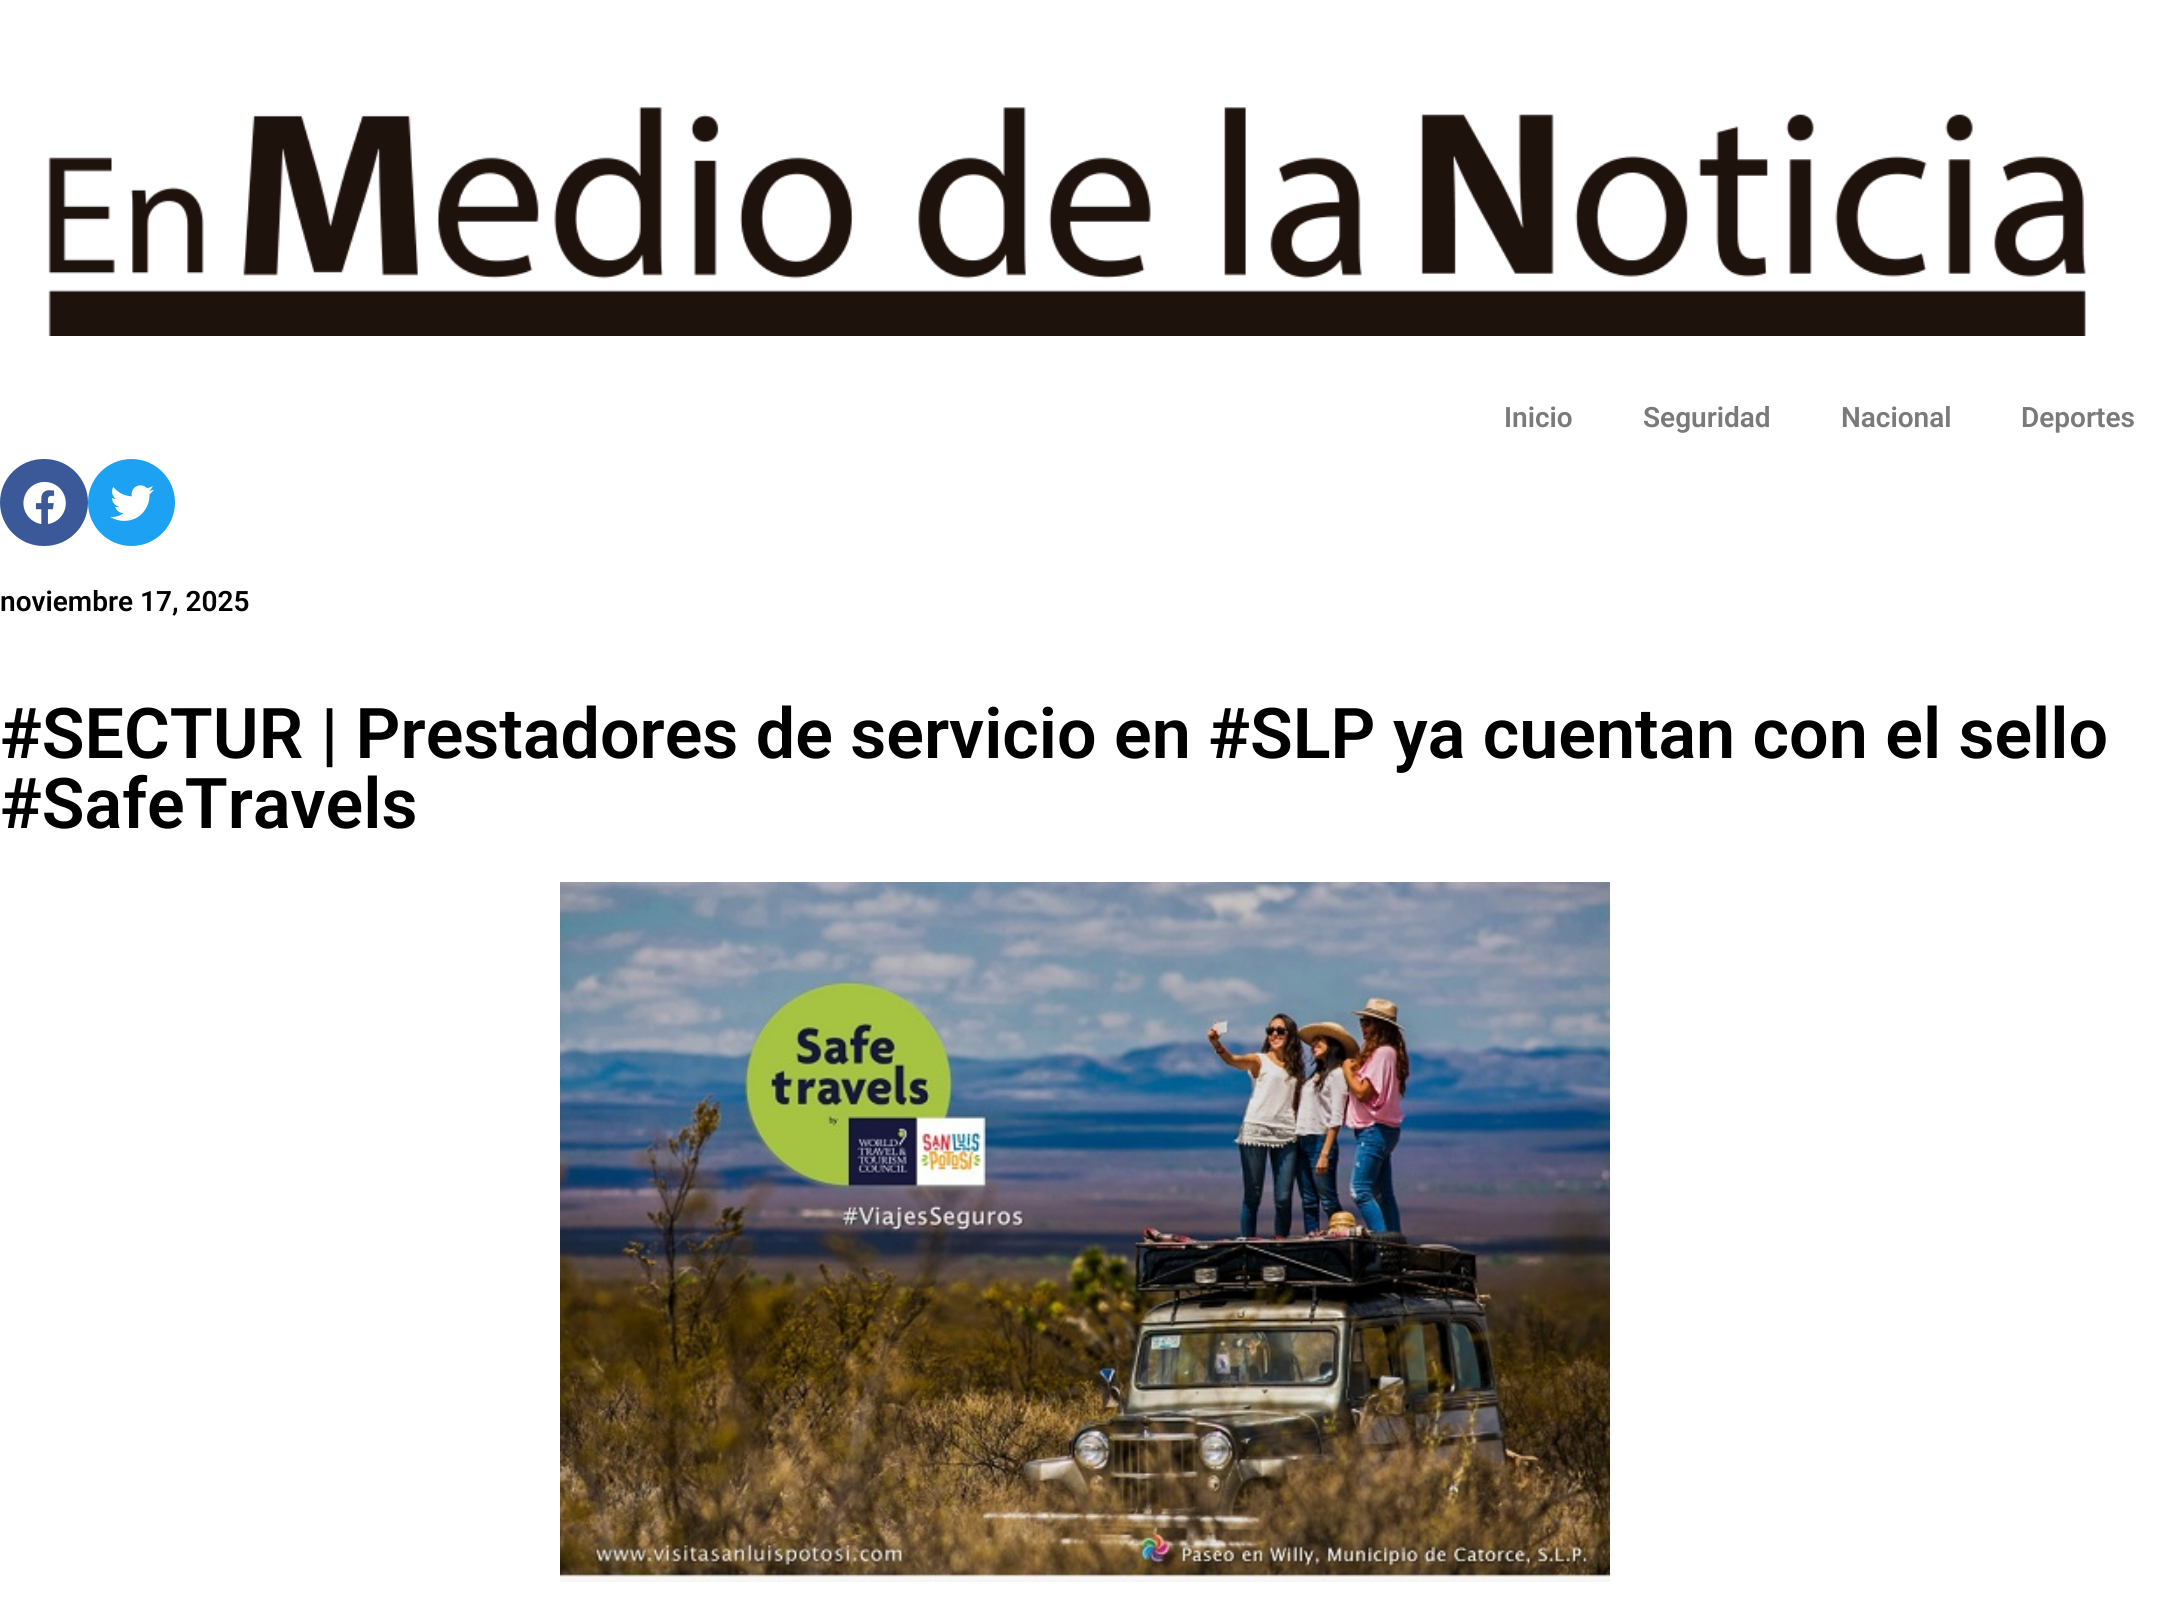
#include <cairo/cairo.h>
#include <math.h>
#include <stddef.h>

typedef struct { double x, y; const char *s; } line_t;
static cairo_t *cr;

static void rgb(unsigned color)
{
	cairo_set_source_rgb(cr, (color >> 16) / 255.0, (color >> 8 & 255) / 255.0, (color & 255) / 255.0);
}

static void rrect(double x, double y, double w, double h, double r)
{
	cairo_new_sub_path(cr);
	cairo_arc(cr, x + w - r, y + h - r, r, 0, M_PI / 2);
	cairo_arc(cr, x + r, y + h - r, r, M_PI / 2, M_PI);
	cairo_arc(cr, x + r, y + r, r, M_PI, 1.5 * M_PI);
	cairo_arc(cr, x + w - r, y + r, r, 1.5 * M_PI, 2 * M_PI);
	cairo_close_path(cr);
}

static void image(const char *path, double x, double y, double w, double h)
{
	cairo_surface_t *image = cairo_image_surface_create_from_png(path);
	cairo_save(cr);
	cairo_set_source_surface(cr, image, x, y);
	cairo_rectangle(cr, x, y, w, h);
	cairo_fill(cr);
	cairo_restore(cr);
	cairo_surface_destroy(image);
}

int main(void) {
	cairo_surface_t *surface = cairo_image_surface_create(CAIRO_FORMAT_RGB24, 2170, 1597);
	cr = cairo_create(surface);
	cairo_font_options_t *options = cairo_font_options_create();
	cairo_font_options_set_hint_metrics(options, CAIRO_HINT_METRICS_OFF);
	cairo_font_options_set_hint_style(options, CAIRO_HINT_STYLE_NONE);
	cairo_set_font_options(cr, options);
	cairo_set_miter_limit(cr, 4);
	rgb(0xffffff);
	cairo_paint(cr);
	image("img/1.png", 48, 107, 2038, 229);
	rgb(0x3b5998);
	rrect(0, 459, 88, 87, 43.5);
	cairo_fill(cr);
	image("img/2.png", 23, 481, 43, 43);
	rgb(0x1da1f2);
	cairo_arc(cr, 131.5, 502.5, 43.5, 0, 2 * M_PI);
	cairo_fill(cr);
	image("img/3.png", 110, 485, 44, 36);
	image("img/4.png", 560, 882, 1050, 700);
	cairo_select_font_face(cr, "Roboto SemiBold", CAIRO_FONT_SLANT_NORMAL, CAIRO_FONT_WEIGHT_NORMAL);
	cairo_set_font_size(cr, 28);
	rgb(0x7a7a7a);
	{
		static const line_t items[] = {
			{1504, 427, "Inicio"},
			{1643, 427, "Seguridad"},
			{1841, 427, "Nacional"},
			{2021, 427, "Deportes"},
		};
		for (size_t i = 0; i < sizeof items / sizeof *items; i++) {
			cairo_move_to(cr, items[i].x, items[i].y);
			cairo_show_text(cr, items[i].s);
		}
	}
	rgb(0x000000);
	cairo_move_to(cr, 0, 611);
	cairo_show_text(cr, "noviembre 17, 2025");
	cairo_set_font_size(cr, 70);
	cairo_move_to(cr, 0, 758);
	cairo_show_text(cr, "#SECTUR | Prestadores de servicio en #SLP ya cuentan con el sello");
	cairo_move_to(cr, 0, 828);
	cairo_show_text(cr, "#SafeTravels");
	cairo_surface_write_to_png(surface, "page.png");
	cairo_font_options_destroy(options);
	cairo_destroy(cr);
	cairo_surface_destroy(surface);
	return 0;
}
